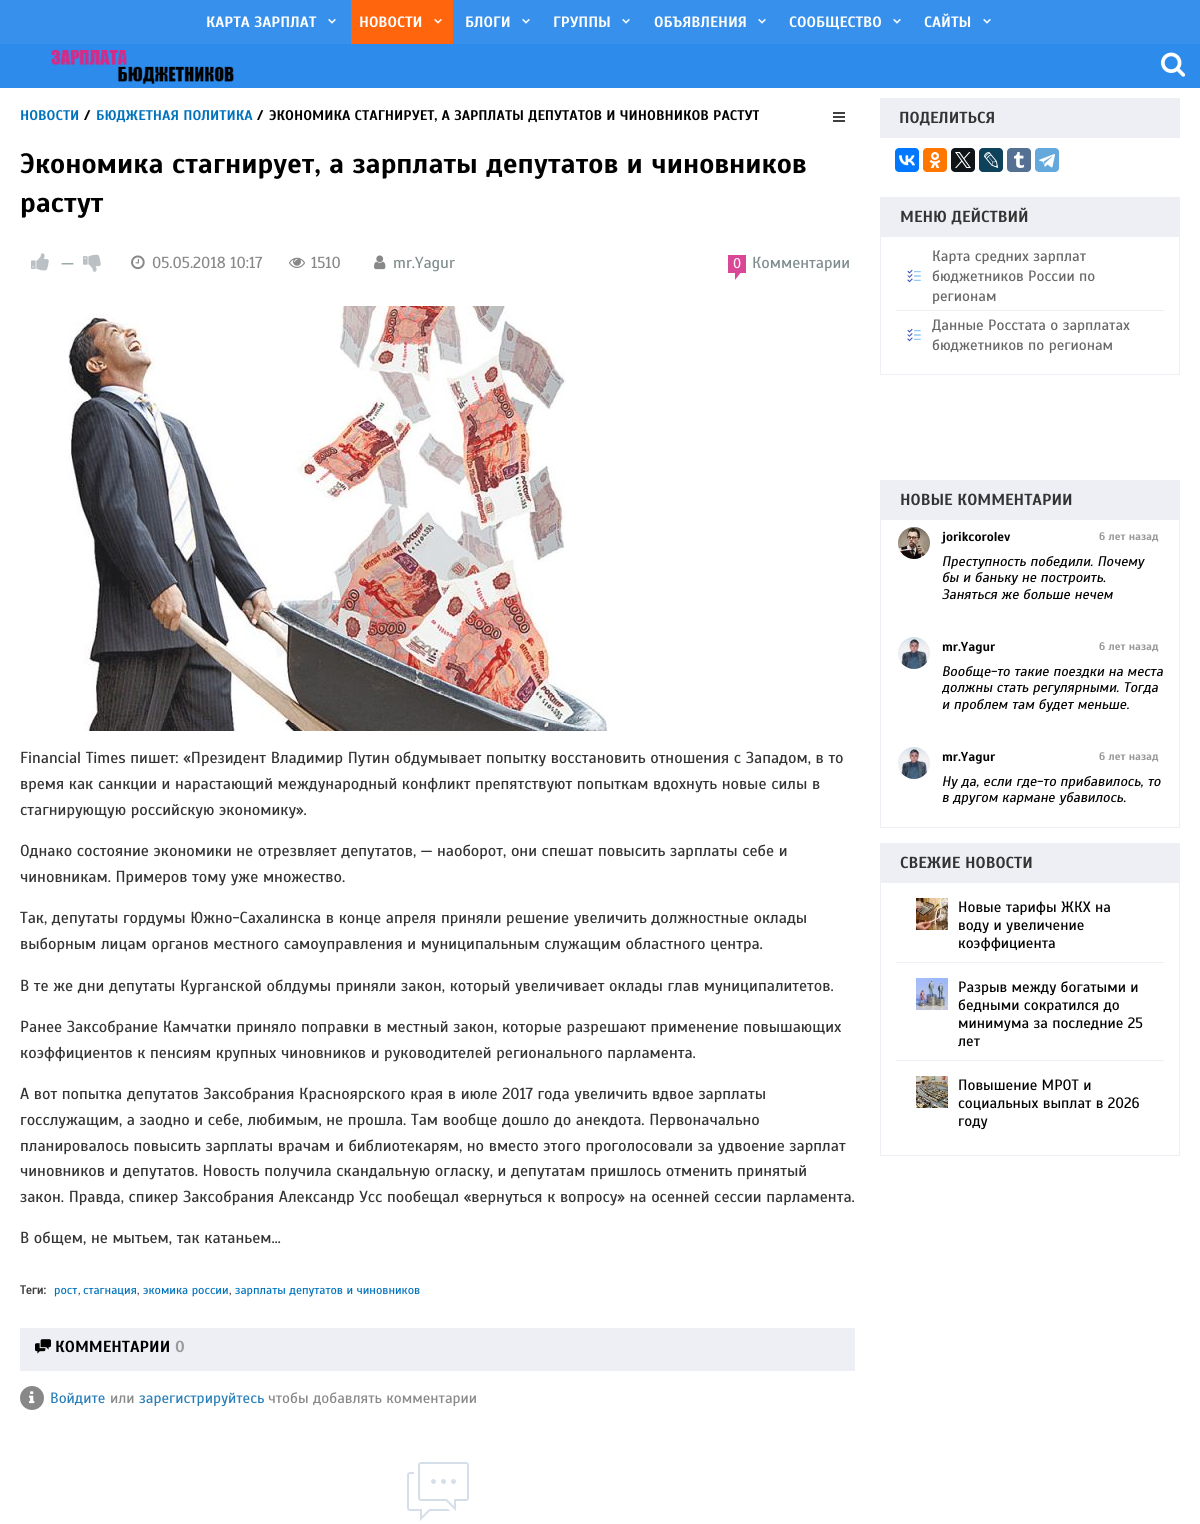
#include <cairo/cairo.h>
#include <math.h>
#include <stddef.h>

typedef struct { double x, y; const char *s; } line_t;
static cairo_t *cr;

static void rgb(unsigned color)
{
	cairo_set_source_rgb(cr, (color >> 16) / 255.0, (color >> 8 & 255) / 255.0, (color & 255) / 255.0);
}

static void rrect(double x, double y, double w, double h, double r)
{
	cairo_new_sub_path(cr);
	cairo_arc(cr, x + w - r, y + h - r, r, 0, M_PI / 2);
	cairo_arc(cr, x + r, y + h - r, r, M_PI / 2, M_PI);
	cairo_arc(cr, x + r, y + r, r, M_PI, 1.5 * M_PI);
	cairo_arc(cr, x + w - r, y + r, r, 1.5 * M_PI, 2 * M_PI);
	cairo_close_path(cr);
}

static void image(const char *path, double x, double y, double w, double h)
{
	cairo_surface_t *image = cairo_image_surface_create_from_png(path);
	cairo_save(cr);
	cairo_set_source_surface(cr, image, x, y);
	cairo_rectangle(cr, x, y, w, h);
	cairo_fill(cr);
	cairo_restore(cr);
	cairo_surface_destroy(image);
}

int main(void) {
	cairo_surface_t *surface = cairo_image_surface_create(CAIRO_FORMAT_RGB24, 1200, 1524);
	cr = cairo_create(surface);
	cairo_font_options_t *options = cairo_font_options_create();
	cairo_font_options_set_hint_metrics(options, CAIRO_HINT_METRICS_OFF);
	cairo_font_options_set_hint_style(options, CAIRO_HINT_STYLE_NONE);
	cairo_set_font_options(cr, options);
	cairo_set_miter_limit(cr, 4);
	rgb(0xffffff);
	cairo_paint(cr);
	rgb(0x3791ec);
	cairo_rectangle(cr, 0, 0, 1200, 44);
	cairo_fill(cr);
	image("img/1.png", 328, 18, 8, 6);
	rgb(0xff650d);
	cairo_rectangle(cr, 351, 0, 102, 44);
	cairo_fill(cr);
	image("img/2.png", 434, 18, 8, 6);
	image("img/1.png", 522, 18, 8, 6);
	image("img/1.png", 622, 18, 8, 6);
	image("img/1.png", 758, 18, 8, 6);
	image("img/1.png", 893, 18, 8, 6);
	image("img/1.png", 983, 18, 8, 6);
	rgb(0x2c8beb);
	cairo_rectangle(cr, 0, 44, 1200, 44);
	cairo_fill(cr);
	image("img/3.png", 51, 50, 183, 34);
	image("img/4.png", 1161, 52, 25, 25);
	image("img/5.png", 833, 112, 12, 10);
	image("img/6.png", 31, 253, 18, 18);
	image("img/7.png", 83, 254, 18, 18);
	image("img/8.png", 131, 255, 14, 15);
	image("img/9.png", 289, 257, 16, 11);
	image("img/10.png", 374, 255, 12, 15);
	rgb(0xdb4797);
	cairo_new_path(cr);
	cairo_move_to(cr, 735, 280);
	cairo_line_to(cr, 735, 271);
	cairo_line_to(cr, 742, 271);
	cairo_close_path(cr);
	cairo_fill(cr);
	cairo_rectangle(cr, 728, 255, 18, 18);
	cairo_fill(cr);
	image("img/11.png", 68, 306, 543, 425);
	rgb(0xedeff5);
	cairo_rectangle(cr, 20, 1328, 835, 43);
	cairo_fill(cr);
	image("img/12.png", 35, 1339, 16, 15);
	rgb(0x888888);
	cairo_arc(cr, 32, 1398, 12, 0, 2 * M_PI);
	cairo_fill(cr);
	image("img/13.png", 29, 1391, 6, 13);
	image("img/14.png", 407, 1462, 62, 59);
	rgb(0xedeff5);
	cairo_rectangle(cr, 880, 98, 300, 40);
	cairo_fill(cr);
	rgb(0x0077ff);
	rrect(895, 148, 24, 24, 4);
	cairo_fill(cr);
	image("img/15.png", 899, 155, 16, 11);
	rgb(0xff7700);
	rrect(923, 148, 24, 24, 4);
	cairo_fill(cr);
	image("img/16.png", 929, 152, 12, 16);
	rgb(0x0f1419);
	rrect(951, 148, 24, 24, 4);
	cairo_fill(cr);
	image("img/17.png", 955, 152, 16, 16);
	rgb(0x0d425a);
	rrect(979, 148, 24, 24, 4);
	cairo_fill(cr);
	image("img/18.png", 984, 152, 15, 16);
	rgb(0x547093);
	rrect(1007, 148, 24, 24, 4);
	cairo_fill(cr);
	image("img/19.png", 1014, 152, 11, 16);
	rgb(0x64a9dc);
	rrect(1035, 148, 24, 24, 4);
	cairo_fill(cr);
	image("img/20.png", 1039, 154, 16, 14);
	cairo_rectangle(cr, 880.5, 197.5, 299, 177);
	rgb(0xedeff5);
	cairo_set_line_width(cr, 1);
	cairo_stroke(cr);
	cairo_rectangle(cr, 881, 198, 298, 39);
	cairo_fill(cr);
	rgb(0xeeeeee);
	cairo_rectangle(cr, 896, 310, 268, 1);
	cairo_fill(cr);
	image("img/21.png", 907, 269, 14, 14);
	image("img/21.png", 907, 328, 14, 14);
	cairo_rectangle(cr, 880.5, 480.5, 299, 347);
	rgb(0xedeff5);
	cairo_stroke(cr);
	cairo_rectangle(cr, 881, 481, 298, 39);
	cairo_fill(cr);
	image("img/22.png", 898, 527, 32, 32);
	image("img/23.png", 898, 637, 32, 32);
	image("img/23.png", 898, 747, 32, 32);
	cairo_rectangle(cr, 880.5, 843.5, 299, 312);
	cairo_stroke(cr);
	cairo_rectangle(cr, 881, 844, 298, 39);
	cairo_fill(cr);
	cairo_rectangle(cr, 896, 962, 268, 1);
	cairo_fill(cr);
	image("img/24.png", 916, 898, 32, 32);
	cairo_rectangle(cr, 896, 1060, 268, 1);
	cairo_fill(cr);
	image("img/25.png", 916, 978, 32, 32);
	image("img/26.png", 916, 1076, 32, 32);
	cairo_select_font_face(cr, "Scada", CAIRO_FONT_SLANT_NORMAL, CAIRO_FONT_WEIGHT_BOLD);
	cairo_set_font_size(cr, 15);
	rgb(0xffffff);
	{
		static const line_t items[] = {
			{206, 27, "КАРТА ЗАРПЛАТ"},
			{359, 27, "НОВОСТИ"},
			{465, 27, "БЛОГИ"},
			{553, 27, "ГРУППЫ"},
			{654, 27, "ОБЪЯВЛЕНИЯ"},
			{789, 27, "СООБЩЕСТВО"},
			{924, 27, "САЙТЫ"},
		};
		for (size_t i = 0; i < sizeof items / sizeof *items; i++) {
			cairo_move_to(cr, items[i].x, items[i].y);
			cairo_show_text(cr, items[i].s);
		}
	}
	cairo_set_font_size(cr, 14);
	rgb(0x0072bc);
	cairo_move_to(cr, 20, 120);
	cairo_show_text(cr, "НОВОСТИ");
	rgb(0x000000);
	cairo_move_to(cr, 84, 120);
	cairo_show_text(cr, "/");
	rgb(0x0072bc);
	cairo_move_to(cr, 96, 120);
	cairo_show_text(cr, "БЮДЖЕТНАЯ ПОЛИТИКА");
	rgb(0x000000);
	cairo_move_to(cr, 257, 120);
	cairo_show_text(cr, "/");
	cairo_move_to(cr, 269, 120);
	cairo_show_text(cr, "ЭКОНОМИКА СТАГНИРУЕТ, А ЗАРПЛАТЫ ДЕПУТАТОВ И ЧИНОВНИКОВ РАСТУТ");
	cairo_set_font_size(cr, 28);
	cairo_move_to(cr, 20, 173);
	cairo_show_text(cr, "Экономика стагнирует, а зарплаты депутатов и чиновников");
	cairo_move_to(cr, 20, 212);
	cairo_show_text(cr, "растут");
	cairo_select_font_face(cr, "Scada", CAIRO_FONT_SLANT_NORMAL, CAIRO_FONT_WEIGHT_NORMAL);
	cairo_set_font_size(cr, 18);
	rgb(0x95a5a6);
	cairo_move_to(cr, 61, 269);
	cairo_show_text(cr, "—");
	cairo_set_font_size(cr, 16);
	rgb(0x888888);
	cairo_move_to(cr, 152, 268);
	cairo_show_text(cr, "05.05.2018 10:17");
	cairo_move_to(cr, 311, 268);
	cairo_show_text(cr, "1510");
	rgb(0x7f8c8d);
	cairo_move_to(cr, 393, 268);
	cairo_show_text(cr, "mr.Yagur");
	cairo_set_font_size(cr, 14);
	rgb(0xffffff);
	cairo_move_to(cr, 733, 268);
	cairo_show_text(cr, "0");
	cairo_set_font_size(cr, 16);
	rgb(0x7f8c8d);
	cairo_move_to(cr, 752, 268);
	cairo_show_text(cr, "Комментарии");
	rgb(0x333333);
	{
		static const line_t items[] = {
			{20, 763, "Financial Times пишет: «Президент Владимир Путин обдумывает попытку восстановить отношения с Западом, в то"},
			{20, 789, "время как санкции и нарастающий международный конфликт препятствуют попыткам вдохнуть новые силы в"},
			{20, 815, "стагнирующую российскую экономику»."},
			{20, 856, "Однако состояние экономики не отрезвляет депутатов, — наоборот, они спешат повысить зарплаты себе и"},
			{20, 882, "чиновникам. Примеров тому уже множество."},
			{20, 923, "Так, депутаты гордумы Южно-Сахалинска в конце апреля приняли решение увеличить должностные оклады"},
			{20, 949, "выборным лицам органов местного самоуправления и муниципальным служащим областного центра."},
			{20, 991, "В те же дни депутаты Курганской облдумы приняли закон, который увеличивает оклады глав муниципалитетов."},
			{20, 1032, "Ранее Заксобрание Камчатки приняло поправки в местный закон, которые разрешают применение повышающих"},
			{20, 1058, "коэффициентов к пенсиям крупных чиновников и руководителей регионального парламента."},
			{20, 1099, "А вот попытка депутатов Заксобрания Красноярского края в июле 2017 года увеличить вдвое зарплаты"},
			{20, 1125, "госслужащим, а заодно и себе, любимым, не прошла. Там вообще дошло до анекдота. Первоначально"},
			{20, 1151, "планировалось повысить зарплаты врачам и библиотекарям, но вместо этого проголосовали за удвоение зарплат"},
			{20, 1176, "чиновников и депутатов. Новость получила скандальную огласку, и депутатам пришлось отменить принятый"},
			{20, 1202, "закон. Правда, спикер Заксобрания Александр Усс пообещал «вернуться к вопросу» на осенней сессии парламента."},
			{20, 1243, "В общем, не мытьем, так катаньем…"},
		};
		for (size_t i = 0; i < sizeof items / sizeof *items; i++) {
			cairo_move_to(cr, items[i].x, items[i].y);
			cairo_show_text(cr, items[i].s);
		}
	}
	cairo_select_font_face(cr, "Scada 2", CAIRO_FONT_SLANT_NORMAL, CAIRO_FONT_WEIGHT_BOLD);
	cairo_set_font_size(cr, 12);
	rgb(0x444444);
	cairo_move_to(cr, 20, 1294);
	cairo_show_text(cr, "Теги:");
	cairo_select_font_face(cr, "Scada", CAIRO_FONT_SLANT_NORMAL, CAIRO_FONT_WEIGHT_NORMAL);
	rgb(0x0072bc);
	cairo_move_to(cr, 54, 1294);
	cairo_show_text(cr, "рост");
	rgb(0x444444);
	cairo_move_to(cr, 78, 1294);
	cairo_show_text(cr, ",");
	rgb(0x0072bc);
	cairo_move_to(cr, 83, 1294);
	cairo_show_text(cr, "стагнация");
	rgb(0x444444);
	cairo_move_to(cr, 137, 1294);
	cairo_show_text(cr, ",");
	rgb(0x0072bc);
	cairo_move_to(cr, 143, 1294);
	cairo_show_text(cr, "экомика россии");
	rgb(0x444444);
	cairo_move_to(cr, 229, 1294);
	cairo_show_text(cr, ",");
	rgb(0x0072bc);
	cairo_move_to(cr, 235, 1294);
	cairo_show_text(cr, "зарплаты депутатов и чиновников");
	cairo_select_font_face(cr, "Scada", CAIRO_FONT_SLANT_NORMAL, CAIRO_FONT_WEIGHT_BOLD);
	cairo_set_font_size(cr, 16);
	rgb(0x000000);
	cairo_move_to(cr, 55, 1352);
	cairo_show_text(cr, "КОММЕНТАРИИ");
	rgb(0x999999);
	cairo_move_to(cr, 175, 1352);
	cairo_show_text(cr, "0");
	cairo_select_font_face(cr, "Scada", CAIRO_FONT_SLANT_NORMAL, CAIRO_FONT_WEIGHT_NORMAL);
	cairo_set_font_size(cr, 15);
	rgb(0x2980b9);
	cairo_move_to(cr, 50, 1403);
	cairo_show_text(cr, "Войдите");
	rgb(0x888888);
	cairo_move_to(cr, 110, 1403);
	cairo_show_text(cr, "или");
	rgb(0x2980b9);
	cairo_move_to(cr, 139, 1403);
	cairo_show_text(cr, "зарегистрируйтесь");
	rgb(0x888888);
	cairo_move_to(cr, 268, 1403);
	cairo_show_text(cr, "чтобы добавлять комментарии");
	cairo_select_font_face(cr, "Scada", CAIRO_FONT_SLANT_NORMAL, CAIRO_FONT_WEIGHT_BOLD);
	cairo_set_font_size(cr, 16);
	rgb(0x333333);
	cairo_move_to(cr, 899, 123);
	cairo_show_text(cr, "ПОДЕЛИТЬСЯ");
	cairo_move_to(cr, 900, 222);
	cairo_show_text(cr, "МЕНЮ ДЕЙСТВИЙ");
	cairo_select_font_face(cr, "Scada", CAIRO_FONT_SLANT_NORMAL, CAIRO_FONT_WEIGHT_NORMAL);
	cairo_set_font_size(cr, 15);
	rgb(0x666666);
	{
		static const line_t items[] = {
			{932, 261, "Карта средних зарплат"},
			{932, 281, "бюджетников России по"},
			{932, 301, "регионам"},
			{932, 330, "Данные Росстата о зарплатах"},
			{932, 350, "бюджетников по регионам"},
		};
		for (size_t i = 0; i < sizeof items / sizeof *items; i++) {
			cairo_move_to(cr, items[i].x, items[i].y);
			cairo_show_text(cr, items[i].s);
		}
	}
	cairo_select_font_face(cr, "Scada", CAIRO_FONT_SLANT_NORMAL, CAIRO_FONT_WEIGHT_BOLD);
	cairo_set_font_size(cr, 16);
	rgb(0x333333);
	cairo_move_to(cr, 900, 505);
	cairo_show_text(cr, "НОВЫЕ КОММЕНТАРИИ");
	cairo_set_font_size(cr, 13);
	rgb(0x000000);
	cairo_move_to(cr, 942, 541);
	cairo_show_text(cr, "jorikcorolev");
	cairo_set_font_size(cr, 11);
	rgb(0x999999);
	cairo_move_to(cr, 1099, 540);
	cairo_show_text(cr, "6 лет назад");
	cairo_select_font_face(cr, "Scada", CAIRO_FONT_SLANT_ITALIC, CAIRO_FONT_WEIGHT_NORMAL);
	cairo_set_font_size(cr, 14);
	rgb(0x000000);
	{
		static const line_t items[] = {
			{942, 566, "Преступность победили. Почему"},
			{942, 582, "бы и баньку не построить."},
			{942, 599, "Заняться же больше нечем"},
		};
		for (size_t i = 0; i < sizeof items / sizeof *items; i++) {
			cairo_move_to(cr, items[i].x, items[i].y);
			cairo_show_text(cr, items[i].s);
		}
	}
	cairo_select_font_face(cr, "Scada", CAIRO_FONT_SLANT_NORMAL, CAIRO_FONT_WEIGHT_BOLD);
	cairo_set_font_size(cr, 13);
	cairo_move_to(cr, 942, 651);
	cairo_show_text(cr, "mr.Yagur");
	cairo_set_font_size(cr, 11);
	rgb(0x999999);
	cairo_move_to(cr, 1099, 650);
	cairo_show_text(cr, "6 лет назад");
	cairo_select_font_face(cr, "Scada", CAIRO_FONT_SLANT_ITALIC, CAIRO_FONT_WEIGHT_NORMAL);
	cairo_set_font_size(cr, 14);
	rgb(0x000000);
	cairo_move_to(cr, 942, 676);
	cairo_show_text(cr, "Вообще-то такие поездки на места");
	cairo_save(cr);
	cairo_rectangle(cr, 942, 661, 222, 58);
	cairo_clip(cr);
	cairo_move_to(cr, 942, 692);
	cairo_show_text(cr, "должны стать регулярными. Тогда");
	cairo_restore(cr);
	cairo_move_to(cr, 942, 709);
	cairo_show_text(cr, "и проблем там будет меньше.");
	cairo_select_font_face(cr, "Scada", CAIRO_FONT_SLANT_NORMAL, CAIRO_FONT_WEIGHT_BOLD);
	cairo_set_font_size(cr, 13);
	cairo_move_to(cr, 942, 761);
	cairo_show_text(cr, "mr.Yagur");
	cairo_set_font_size(cr, 11);
	rgb(0x999999);
	cairo_move_to(cr, 1099, 760);
	cairo_show_text(cr, "6 лет назад");
	cairo_select_font_face(cr, "Scada", CAIRO_FONT_SLANT_ITALIC, CAIRO_FONT_WEIGHT_NORMAL);
	cairo_set_font_size(cr, 14);
	rgb(0x000000);
	cairo_move_to(cr, 942, 786);
	cairo_show_text(cr, "Ну да, если где-то прибавилось, то");
	cairo_move_to(cr, 942, 802);
	cairo_show_text(cr, "в другом кармане убавилось.");
	cairo_select_font_face(cr, "Scada", CAIRO_FONT_SLANT_NORMAL, CAIRO_FONT_WEIGHT_BOLD);
	cairo_set_font_size(cr, 16);
	rgb(0x333333);
	cairo_move_to(cr, 900, 868);
	cairo_show_text(cr, "СВЕЖИЕ НОВОСТИ");
	cairo_select_font_face(cr, "Scada", CAIRO_FONT_SLANT_NORMAL, CAIRO_FONT_WEIGHT_NORMAL);
	cairo_set_font_size(cr, 15);
	rgb(0x000000);
	{
		static const line_t items[] = {
			{958, 912, "Новые тарифы ЖКХ на"},
			{958, 930, "воду и увеличение"},
			{958, 948, "коэффициента"},
			{958, 992, "Разрыв между богатыми и"},
			{958, 1010, "бедными сократился до"},
			{958, 1028, "минимума за последние 25"},
			{958, 1046, "лет"},
			{958, 1090, "Повышение МРОТ и"},
			{958, 1108, "социальных выплат в 2026"},
			{958, 1126, "году"},
		};
		for (size_t i = 0; i < sizeof items / sizeof *items; i++) {
			cairo_move_to(cr, items[i].x, items[i].y);
			cairo_show_text(cr, items[i].s);
		}
	}
	cairo_surface_write_to_png(surface, "page.png");
	cairo_font_options_destroy(options);
	cairo_destroy(cr);
	cairo_surface_destroy(surface);
	return 0;
}
